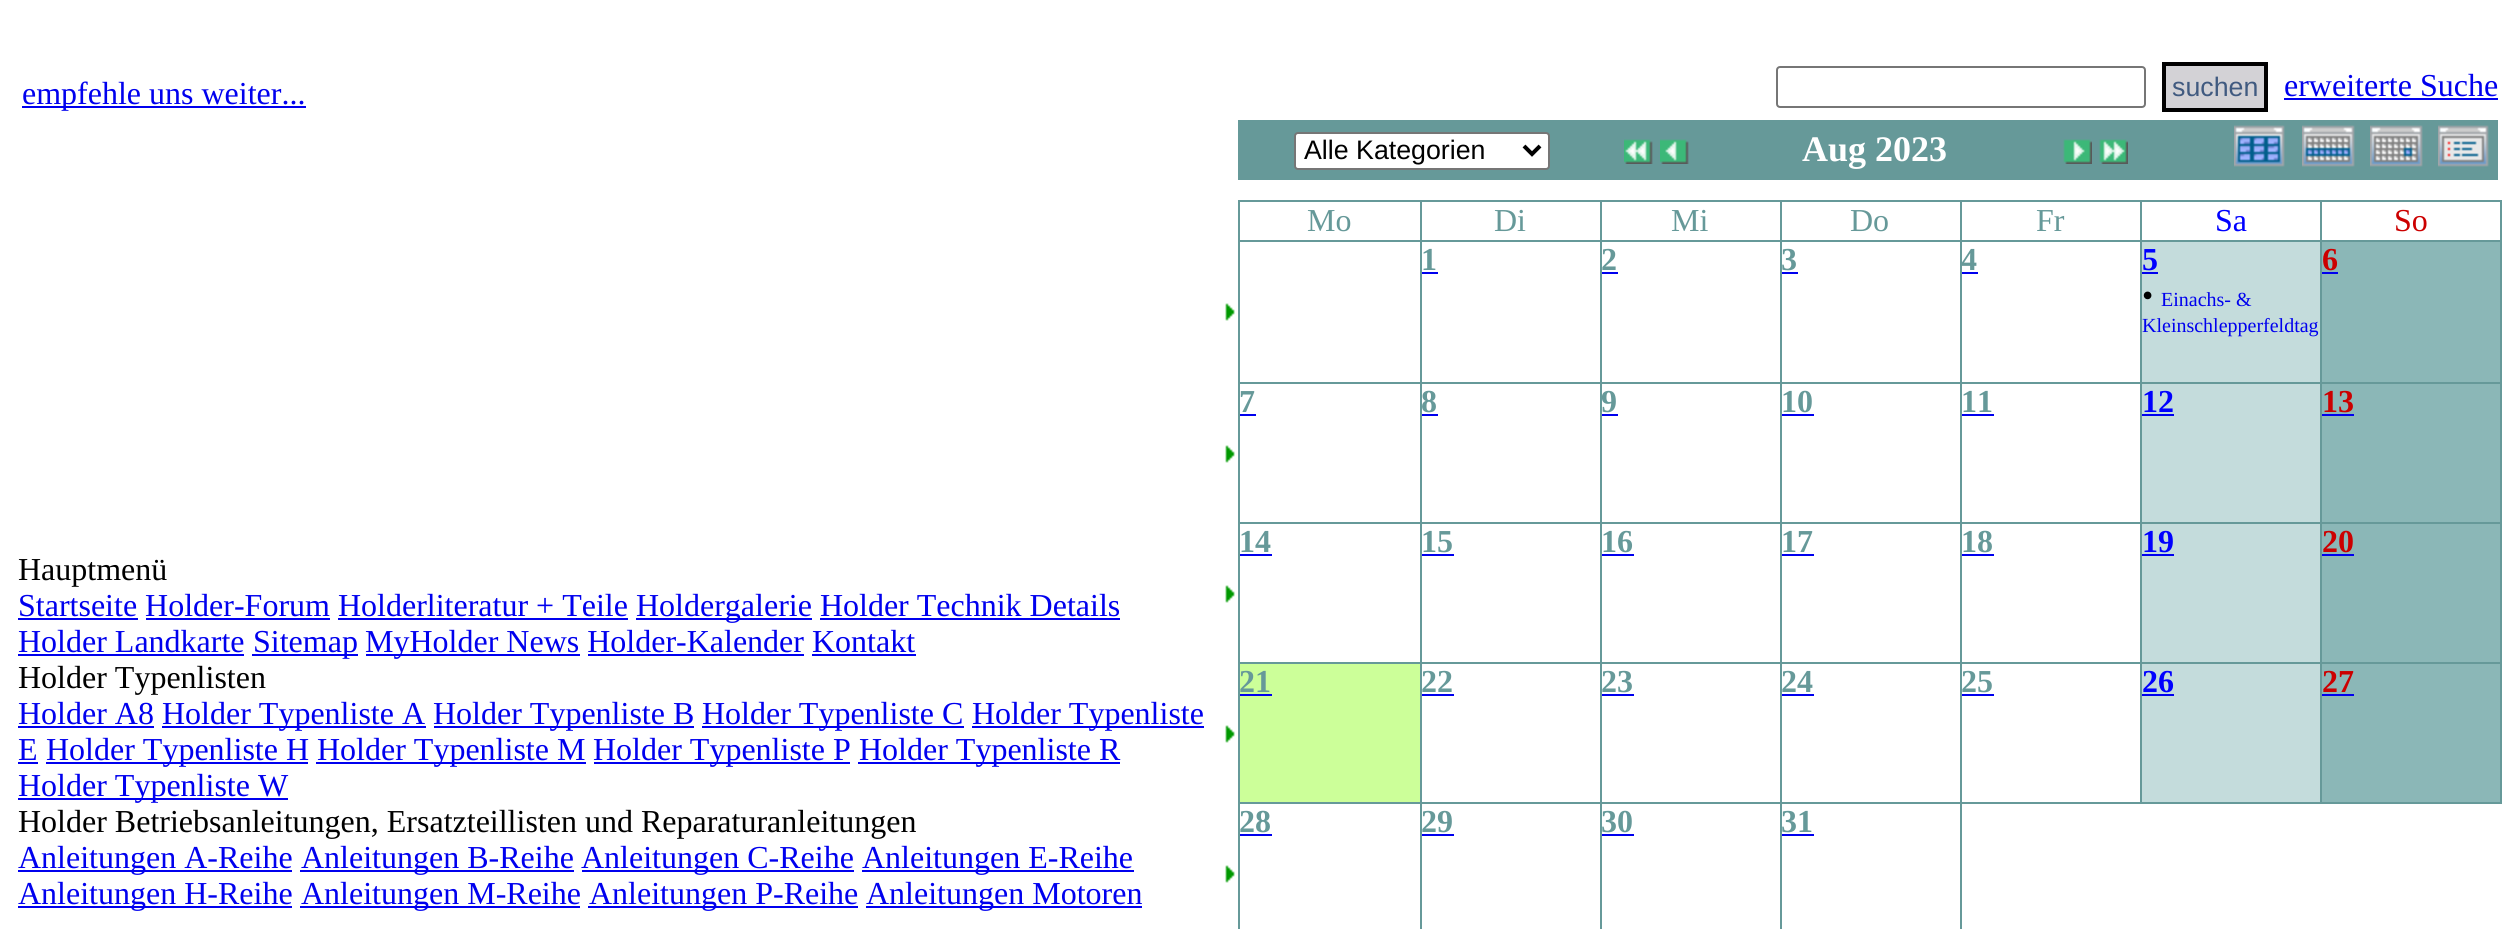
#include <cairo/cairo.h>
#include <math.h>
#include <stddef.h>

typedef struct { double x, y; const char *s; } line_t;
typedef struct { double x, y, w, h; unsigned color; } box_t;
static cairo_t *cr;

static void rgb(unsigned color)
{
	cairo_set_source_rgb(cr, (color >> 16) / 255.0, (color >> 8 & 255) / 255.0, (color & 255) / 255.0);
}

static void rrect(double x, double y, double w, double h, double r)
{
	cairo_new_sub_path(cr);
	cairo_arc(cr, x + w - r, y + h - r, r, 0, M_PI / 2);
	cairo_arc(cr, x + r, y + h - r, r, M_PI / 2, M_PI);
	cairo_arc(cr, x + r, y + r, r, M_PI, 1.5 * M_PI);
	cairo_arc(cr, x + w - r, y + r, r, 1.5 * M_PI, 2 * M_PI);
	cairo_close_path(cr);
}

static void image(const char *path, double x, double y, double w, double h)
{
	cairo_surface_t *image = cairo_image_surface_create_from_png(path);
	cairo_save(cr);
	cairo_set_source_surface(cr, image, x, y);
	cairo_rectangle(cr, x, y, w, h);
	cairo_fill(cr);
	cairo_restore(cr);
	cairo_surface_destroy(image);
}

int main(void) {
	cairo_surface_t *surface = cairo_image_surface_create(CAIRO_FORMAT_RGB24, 2519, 929);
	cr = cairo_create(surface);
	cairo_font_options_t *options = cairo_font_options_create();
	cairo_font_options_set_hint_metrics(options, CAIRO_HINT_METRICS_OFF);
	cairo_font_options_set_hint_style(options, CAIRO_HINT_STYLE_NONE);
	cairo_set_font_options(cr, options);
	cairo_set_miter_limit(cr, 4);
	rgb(0xffffff);
	cairo_paint(cr);
	rgb(0x0000ee);
	cairo_rectangle(cr, 22, 106, 284, 2);
	cairo_fill(cr);
	rrect(1777, 67, 368, 40, 3);
	rgb(0x767676);
	cairo_stroke(cr);
	rgb(0xd3d2d6);
	cairo_rectangle(cr, 2164, 64, 102, 46);
	cairo_fill_preserve(cr);
	rgb(0x000000);
	cairo_set_line_width(cr, 4);
	cairo_stroke(cr);
	{
		static const box_t items[] = {
			{2284, 98, 214, 2, 0x0000ee},
			{18, 618, 120, 2, 0x0000ee},
			{636, 618, 176, 2, 0x0000ee},
			{146, 618, 184, 2, 0x0000ee},
			{338, 618, 290, 2, 0x0000ee},
			{820, 618, 300, 2, 0x0000ee},
			{18, 654, 226, 2, 0x0000ee},
			{252, 654, 106, 2, 0x0000ee},
			{366, 654, 214, 2, 0x0000ee},
			{588, 654, 216, 2, 0x0000ee},
			{812, 654, 104, 2, 0x0000ee},
			{18, 726, 136, 2, 0x0000ee},
			{162, 726, 264, 2, 0x0000ee},
			{434, 726, 260, 2, 0x0000ee},
			{702, 726, 262, 2, 0x0000ee},
			{972, 726, 232, 2, 0x0000ee},
			{18, 762, 20, 2, 0x0000ee},
			{46, 762, 262, 2, 0x0000ee},
			{316, 762, 270, 2, 0x0000ee},
			{594, 762, 256, 2, 0x0000ee},
			{858, 762, 262, 2, 0x0000ee},
			{18, 798, 270, 2, 0x0000ee},
			{18, 870, 274, 2, 0x0000ee},
			{300, 870, 274, 2, 0x0000ee},
			{582, 870, 272, 2, 0x0000ee},
			{862, 870, 272, 2, 0x0000ee},
			{18, 906, 274, 2, 0x0000ee},
			{300, 906, 280, 2, 0x0000ee},
			{588, 906, 270, 2, 0x0000ee},
			{866, 906, 276, 2, 0x0000ee},
			{1238, 120, 1260, 60, 0x669999},
		};
		for (size_t i = 0; i < sizeof items / sizeof *items; i++) {
			rgb(items[i].color);
			cairo_rectangle(cr, items[i].x, items[i].y, items[i].w, items[i].h);
			cairo_fill(cr);
		}
	}
	rgb(0xffffff);
	rrect(1295, 133, 254, 36, 3);
	cairo_fill_preserve(cr);
	rgb(0x767676);
	cairo_set_line_width(cr, 2);
	cairo_stroke(cr);
	cairo_new_path(cr);
	cairo_move_to(cr, 1524, 146);
	cairo_line_to(cr, 1532, 154);
	cairo_line_to(cr, 1540, 146);
	rgb(0x000000);
	cairo_set_line_width(cr, 4);
	cairo_stroke(cr);
	image("img/1.png", 1624, 139, 29, 25);
	image("img/2.png", 1660, 139, 29, 25);
	image("img/3.png", 2063, 139, 29, 25);
	image("img/4.png", 2099, 139, 29, 25);
	image("img/5.png", 2234, 125, 51, 42);
	image("img/6.png", 2302, 125, 53, 42);
	image("img/7.png", 2370, 125, 53, 42);
	image("img/8.png", 2438, 125, 51, 42);
	{
		static const box_t items[] = {
			{2320, 200, 182, 2, 0x669999},
			{2320, 240, 182, 2, 0x669999},
			{2320, 382, 182, 2, 0x669999},
			{2320, 522, 182, 2, 0x669999},
			{2320, 662, 182, 2, 0x669999},
			{2500, 662, 2, 142, 0x669999},
			{2320, 802, 182, 2, 0x669999},
			{2320, 662, 2, 142, 0x669999},
			{2140, 662, 182, 2, 0x669999},
			{2320, 522, 2, 142, 0x669999},
			{2140, 522, 182, 2, 0x669999},
			{2320, 382, 2, 142, 0x669999},
			{2140, 382, 182, 2, 0x669999},
			{2320, 240, 2, 144, 0x669999},
			{2140, 240, 182, 2, 0x669999},
			{2320, 200, 2, 42, 0x669999},
			{2140, 200, 182, 2, 0x669999},
			{2140, 802, 182, 2, 0x669999},
			{2140, 662, 2, 142, 0x669999},
			{1960, 662, 182, 2, 0x669999},
			{2140, 522, 2, 142, 0x669999},
			{1960, 522, 182, 2, 0x669999},
			{2140, 382, 2, 142, 0x669999},
			{1960, 382, 182, 2, 0x669999},
			{2140, 240, 2, 144, 0x669999},
			{1960, 240, 182, 2, 0x669999},
			{2140, 200, 2, 42, 0x669999},
			{1960, 200, 182, 2, 0x669999},
			{1780, 802, 182, 2, 0x669999},
			{1960, 802, 2, 127, 0x669999},
			{1960, 802, 182, 2, 0x669999},
			{1960, 662, 2, 142, 0x669999},
			{1780, 662, 182, 2, 0x669999},
			{1960, 522, 2, 142, 0x669999},
			{1780, 522, 182, 2, 0x669999},
			{1960, 382, 2, 142, 0x669999},
			{1780, 382, 182, 2, 0x669999},
			{1960, 240, 2, 144, 0x669999},
			{1780, 240, 182, 2, 0x669999},
			{1960, 200, 2, 42, 0x669999},
			{1780, 200, 182, 2, 0x669999},
			{1780, 802, 2, 127, 0x669999},
			{1600, 802, 182, 2, 0x669999},
			{1780, 662, 2, 142, 0x669999},
			{1600, 662, 182, 2, 0x669999},
			{1780, 522, 2, 142, 0x669999},
			{1600, 522, 182, 2, 0x669999},
			{1780, 382, 2, 142, 0x669999},
			{1600, 382, 182, 2, 0x669999},
			{1780, 240, 2, 144, 0x669999},
			{1600, 240, 182, 2, 0x669999},
			{1780, 200, 2, 42, 0x669999},
			{1600, 200, 182, 2, 0x669999},
			{1600, 802, 2, 127, 0x669999},
			{1420, 802, 182, 2, 0x669999},
			{1600, 662, 2, 142, 0x669999},
			{1420, 662, 182, 2, 0x669999},
			{1600, 522, 2, 142, 0x669999},
			{1420, 522, 182, 2, 0x669999},
			{1600, 382, 2, 142, 0x669999},
			{1420, 382, 182, 2, 0x669999},
			{1600, 240, 2, 144, 0x669999},
			{1420, 240, 182, 2, 0x669999},
			{1600, 200, 2, 42, 0x669999},
			{1420, 200, 182, 2, 0x669999},
			{1420, 802, 2, 127, 0x669999},
			{1238, 802, 184, 2, 0x669999},
			{1420, 662, 2, 142, 0x669999},
			{1238, 662, 184, 2, 0x669999},
			{1420, 522, 2, 142, 0x669999},
			{1238, 522, 184, 2, 0x669999},
			{1420, 382, 2, 142, 0x669999},
			{1238, 382, 184, 2, 0x669999},
			{1420, 240, 2, 144, 0x669999},
			{1238, 240, 184, 2, 0x669999},
			{1420, 200, 2, 42, 0x669999},
			{1238, 200, 184, 2, 0x669999},
			{1238, 802, 2, 127, 0x669999},
			{1238, 662, 2, 142, 0x669999},
			{1238, 522, 2, 142, 0x669999},
			{1238, 382, 2, 142, 0x669999},
			{1238, 240, 2, 144, 0x669999},
			{1238, 200, 2, 42, 0x669999},
			{2500, 522, 2, 142, 0x669999},
			{2500, 382, 2, 142, 0x669999},
			{2500, 240, 2, 144, 0x669999},
			{2500, 200, 2, 42, 0x669999},
		};
		for (size_t i = 0; i < sizeof items / sizeof *items; i++) {
			rgb(items[i].color);
			cairo_rectangle(cr, items[i].x, items[i].y, items[i].w, items[i].h);
			cairo_fill(cr);
		}
	}
	image("img/9.png", 1225, 303, 10, 18);
	{
		static const box_t items[] = {
			{1422, 272, 16, 2, 0x0000ee},
			{1602, 272, 16, 2, 0x0000ee},
			{1782, 272, 16, 2, 0x0000ee},
			{1962, 272, 16, 2, 0x0000ee},
			{2142, 242, 178, 140, 0xc4dcdc},
			{2142, 272, 16, 2, 0x0000ee},
			{2322, 242, 178, 140, 0x8bb7b7},
			{2322, 272, 16, 2, 0x0000ee},
			{1240, 414, 16, 2, 0x0000ee},
			{1422, 414, 16, 2, 0x0000ee},
			{1602, 414, 16, 2, 0x0000ee},
			{1782, 414, 32, 2, 0x0000ee},
			{1962, 414, 32, 2, 0x0000ee},
			{2142, 384, 178, 138, 0xc4dcdc},
			{2142, 414, 32, 2, 0x0000ee},
			{2322, 384, 178, 138, 0x8bb7b7},
			{2322, 414, 32, 2, 0x0000ee},
		};
		for (size_t i = 0; i < sizeof items / sizeof *items; i++) {
			rgb(items[i].color);
			cairo_rectangle(cr, items[i].x, items[i].y, items[i].w, items[i].h);
			cairo_fill(cr);
		}
	}
	image("img/9.png", 1225, 445, 10, 18);
	{
		static const box_t items[] = {
			{1240, 554, 32, 2, 0x0000ee},
			{1422, 554, 32, 2, 0x0000ee},
			{1602, 554, 32, 2, 0x0000ee},
			{1782, 554, 32, 2, 0x0000ee},
			{1962, 554, 32, 2, 0x0000ee},
			{2142, 524, 178, 138, 0xc4dcdc},
			{2142, 554, 32, 2, 0x0000ee},
			{2322, 524, 178, 138, 0x8bb7b7},
			{2322, 554, 32, 2, 0x0000ee},
		};
		for (size_t i = 0; i < sizeof items / sizeof *items; i++) {
			rgb(items[i].color);
			cairo_rectangle(cr, items[i].x, items[i].y, items[i].w, items[i].h);
			cairo_fill(cr);
		}
	}
	image("img/9.png", 1225, 585, 10, 18);
	{
		static const box_t items[] = {
			{1240, 664, 180, 138, 0xccff99},
			{1240, 694, 32, 2, 0x0000ee},
			{1422, 694, 32, 2, 0x0000ee},
			{1602, 694, 32, 2, 0x0000ee},
			{1782, 694, 32, 2, 0x0000ee},
			{1962, 694, 32, 2, 0x0000ee},
			{2142, 664, 178, 138, 0xc4dcdc},
			{2142, 694, 32, 2, 0x0000ee},
			{2322, 664, 178, 138, 0x8bb7b7},
			{2322, 694, 32, 2, 0x0000ee},
		};
		for (size_t i = 0; i < sizeof items / sizeof *items; i++) {
			rgb(items[i].color);
			cairo_rectangle(cr, items[i].x, items[i].y, items[i].w, items[i].h);
			cairo_fill(cr);
		}
	}
	image("img/9.png", 1225, 725, 10, 18);
	{
		static const box_t items[] = {
			{1240, 834, 32, 2, 0x0000ee},
			{1422, 834, 32, 2, 0x0000ee},
			{1602, 834, 32, 2, 0x0000ee},
			{1782, 834, 32, 2, 0x0000ee},
		};
		for (size_t i = 0; i < sizeof items / sizeof *items; i++) {
			rgb(items[i].color);
			cairo_rectangle(cr, items[i].x, items[i].y, items[i].w, items[i].h);
			cairo_fill(cr);
		}
	}
	image("img/9.png", 1225, 865, 10, 18);
	cairo_select_font_face(cr, "Liberation Serif", CAIRO_FONT_SLANT_NORMAL, CAIRO_FONT_WEIGHT_NORMAL);
	cairo_set_font_size(cr, 32);
	cairo_move_to(cr, 22, 104);
	cairo_show_text(cr, "empfehle uns weiter...");
	cairo_select_font_face(cr, "Liberation Sans", CAIRO_FONT_SLANT_NORMAL, CAIRO_FONT_WEIGHT_NORMAL);
	cairo_set_font_size(cr, 26.75);
	rgb(0x405a80);
	cairo_move_to(cr, 2172, 96);
	cairo_show_text(cr, "suchen");
	cairo_select_font_face(cr, "Liberation Serif", CAIRO_FONT_SLANT_NORMAL, CAIRO_FONT_WEIGHT_NORMAL);
	cairo_set_font_size(cr, 32);
	rgb(0x0000ee);
	cairo_move_to(cr, 2284, 96);
	cairo_show_text(cr, "erweiterte Suche");
	rgb(0x000000);
	cairo_move_to(cr, 18, 580);
	cairo_show_text(cr, "Hauptmenü");
	rgb(0x0000ee);
	{
		static const line_t items[] = {
			{18, 616, "Startseite Holder-Forum Holderliteratur + Teile"},
			{636, 616, "Holdergalerie Holder Technik Details"},
			{18, 652, "Holder Landkarte"},
			{253, 652, "Sitemap"},
			{365, 652, "MyHolder News Holder-Kalender Kontakt"},
		};
		for (size_t i = 0; i < sizeof items / sizeof *items; i++) {
			cairo_move_to(cr, items[i].x, items[i].y);
			cairo_show_text(cr, items[i].s);
		}
	}
	rgb(0x000000);
	cairo_move_to(cr, 18, 688);
	cairo_show_text(cr, "Holder Typenlisten");
	rgb(0x0000ee);
	{
		static const line_t items[] = {
			{18, 724, "Holder A8"},
			{162, 724, "Holder Typenliste A"},
			{433, 724, "Holder Typenliste B"},
			{702, 724, "Holder Typenliste C"},
			{972, 724, "Holder Typenliste"},
			{18, 760, "E"},
			{46, 760, "Holder Typenliste H"},
			{317, 760, "Holder Typenliste M"},
			{593, 760, "Holder Typenliste P"},
			{859, 760, "Holder Typenliste R"},
			{18, 796, "Holder Typenliste W"},
		};
		for (size_t i = 0; i < sizeof items / sizeof *items; i++) {
			cairo_move_to(cr, items[i].x, items[i].y);
			cairo_show_text(cr, items[i].s);
		}
	}
	rgb(0x000000);
	cairo_move_to(cr, 18, 832);
	cairo_show_text(cr, "Holder Betriebsanleitungen, Ersatzteillisten und Reparaturanleitungen");
	rgb(0x0000ee);
	{
		static const line_t items[] = {
			{18, 868, "Anleitungen A-Reihe"},
			{301, 868, "Anleitungen B-Reihe"},
			{581, 868, "Anleitungen C-Reihe"},
			{862, 868, "Anleitungen E-Reihe"},
			{18, 904, "Anleitungen H-Reihe"},
			{301, 904, "Anleitungen M-Reihe"},
			{589, 904, "Anleitungen P-Reihe"},
			{866, 904, "Anleitungen Motoren"},
		};
		for (size_t i = 0; i < sizeof items / sizeof *items; i++) {
			cairo_move_to(cr, items[i].x, items[i].y);
			cairo_show_text(cr, items[i].s);
		}
	}
	cairo_select_font_face(cr, "Liberation Sans", CAIRO_FONT_SLANT_NORMAL, CAIRO_FONT_WEIGHT_NORMAL);
	cairo_set_font_size(cr, 26.75);
	rgb(0x000000);
	cairo_move_to(cr, 1304, 159);
	cairo_show_text(cr, "Alle Kategorien");
	cairo_select_font_face(cr, "Liberation Serif", CAIRO_FONT_SLANT_NORMAL, CAIRO_FONT_WEIGHT_BOLD);
	cairo_set_font_size(cr, 36);
	rgb(0xffffff);
	cairo_move_to(cr, 1802, 161);
	cairo_show_text(cr, "Aug 2023");
	cairo_select_font_face(cr, "Liberation Serif", CAIRO_FONT_SLANT_NORMAL, CAIRO_FONT_WEIGHT_NORMAL);
	cairo_set_font_size(cr, 32);
	rgb(0x669999);
	{
		static const line_t items[] = {
			{1307, 231, "Mo"},
			{1494, 231, "Di"},
			{1671, 231, "Mi"},
			{1850, 231, "Do"},
			{2036, 231, "Fr"},
		};
		for (size_t i = 0; i < sizeof items / sizeof *items; i++) {
			cairo_move_to(cr, items[i].x, items[i].y);
			cairo_show_text(cr, items[i].s);
		}
	}
	rgb(0x0000ff);
	cairo_move_to(cr, 2215, 231);
	cairo_show_text(cr, "Sa");
	rgb(0xcc0000);
	cairo_move_to(cr, 2394, 231);
	cairo_show_text(cr, "So");
	cairo_select_font_face(cr, "Liberation Serif", CAIRO_FONT_SLANT_NORMAL, CAIRO_FONT_WEIGHT_BOLD);
	rgb(0x669999);
	{
		static const line_t items[] = {
			{1421, 270, "1"},
			{1601, 270, "2"},
			{1781, 270, "3"},
			{1961, 270, "4"},
		};
		for (size_t i = 0; i < sizeof items / sizeof *items; i++) {
			cairo_move_to(cr, items[i].x, items[i].y);
			cairo_show_text(cr, items[i].s);
		}
	}
	rgb(0x0000ff);
	cairo_move_to(cr, 2142, 270);
	cairo_show_text(cr, "5");
	cairo_select_font_face(cr, "Liberation Serif", CAIRO_FONT_SLANT_NORMAL, CAIRO_FONT_WEIGHT_NORMAL);
	rgb(0x000000);
	cairo_move_to(cr, 2142, 306);
	cairo_show_text(cr, "•");
	cairo_set_font_size(cr, 20);
	rgb(0x0000ee);
	cairo_move_to(cr, 2161, 306);
	cairo_show_text(cr, "Einachs- &");
	cairo_move_to(cr, 2142, 332);
	cairo_show_text(cr, "Kleinschlepperfeldtag");
	cairo_select_font_face(cr, "Liberation Serif", CAIRO_FONT_SLANT_NORMAL, CAIRO_FONT_WEIGHT_BOLD);
	cairo_set_font_size(cr, 32);
	rgb(0xcc0000);
	cairo_move_to(cr, 2322, 270);
	cairo_show_text(cr, "6");
	rgb(0x669999);
	{
		static const line_t items[] = {
			{1239, 412, "7"},
			{1421, 412, "8"},
			{1601, 412, "9"},
			{1781, 412, "10"},
			{1961, 412, "11"},
		};
		for (size_t i = 0; i < sizeof items / sizeof *items; i++) {
			cairo_move_to(cr, items[i].x, items[i].y);
			cairo_show_text(cr, items[i].s);
		}
	}
	rgb(0x0000ff);
	cairo_move_to(cr, 2142, 412);
	cairo_show_text(cr, "12");
	rgb(0xcc0000);
	cairo_move_to(cr, 2322, 412);
	cairo_show_text(cr, "13");
	rgb(0x669999);
	{
		static const line_t items[] = {
			{1239, 552, "14"},
			{1421, 552, "15"},
			{1601, 552, "16"},
			{1781, 552, "17"},
			{1961, 552, "18"},
		};
		for (size_t i = 0; i < sizeof items / sizeof *items; i++) {
			cairo_move_to(cr, items[i].x, items[i].y);
			cairo_show_text(cr, items[i].s);
		}
	}
	rgb(0x0000ff);
	cairo_move_to(cr, 2142, 552);
	cairo_show_text(cr, "19");
	rgb(0xcc0000);
	cairo_move_to(cr, 2322, 552);
	cairo_show_text(cr, "20");
	rgb(0x669999);
	{
		static const line_t items[] = {
			{1239, 692, "21"},
			{1421, 692, "22"},
			{1601, 692, "23"},
			{1781, 692, "24"},
			{1961, 692, "25"},
		};
		for (size_t i = 0; i < sizeof items / sizeof *items; i++) {
			cairo_move_to(cr, items[i].x, items[i].y);
			cairo_show_text(cr, items[i].s);
		}
	}
	rgb(0x0000ff);
	cairo_move_to(cr, 2142, 692);
	cairo_show_text(cr, "26");
	rgb(0xcc0000);
	cairo_move_to(cr, 2322, 692);
	cairo_show_text(cr, "27");
	rgb(0x669999);
	{
		static const line_t items[] = {
			{1239, 832, "28"},
			{1421, 832, "29"},
			{1601, 832, "30"},
			{1781, 832, "31"},
		};
		for (size_t i = 0; i < sizeof items / sizeof *items; i++) {
			cairo_move_to(cr, items[i].x, items[i].y);
			cairo_show_text(cr, items[i].s);
		}
	}
	cairo_surface_write_to_png(surface, "page.png");
	cairo_font_options_destroy(options);
	cairo_destroy(cr);
	cairo_surface_destroy(surface);
	return 0;
}
